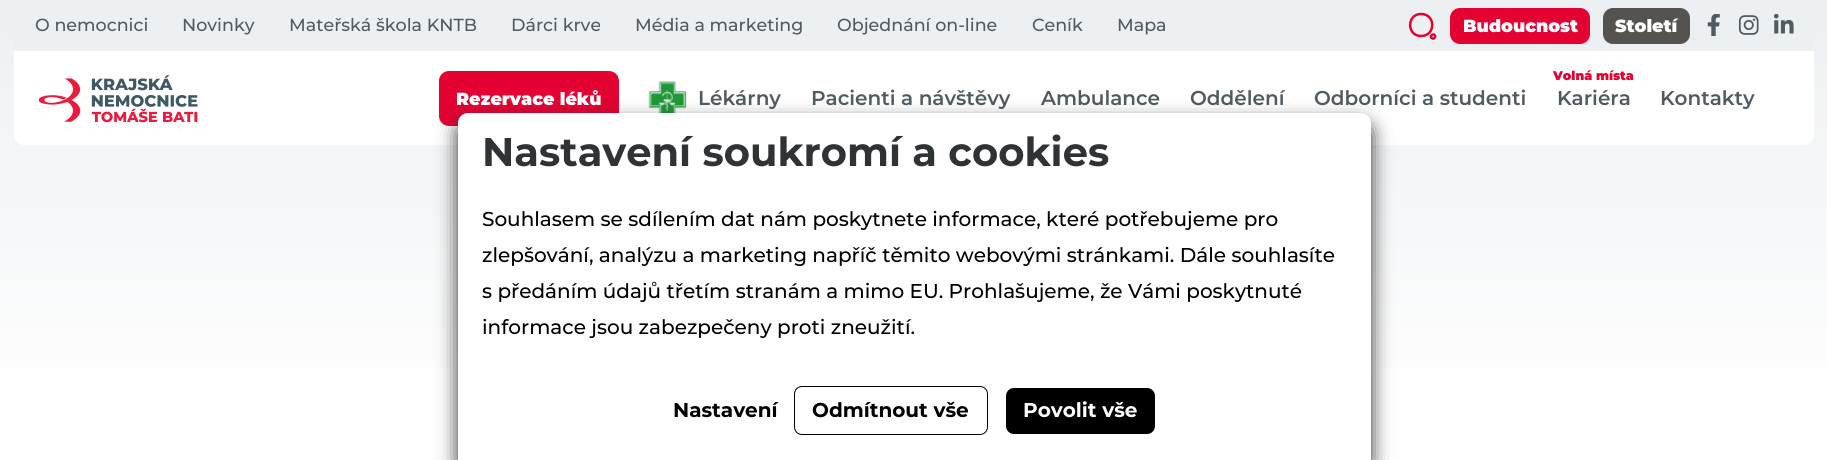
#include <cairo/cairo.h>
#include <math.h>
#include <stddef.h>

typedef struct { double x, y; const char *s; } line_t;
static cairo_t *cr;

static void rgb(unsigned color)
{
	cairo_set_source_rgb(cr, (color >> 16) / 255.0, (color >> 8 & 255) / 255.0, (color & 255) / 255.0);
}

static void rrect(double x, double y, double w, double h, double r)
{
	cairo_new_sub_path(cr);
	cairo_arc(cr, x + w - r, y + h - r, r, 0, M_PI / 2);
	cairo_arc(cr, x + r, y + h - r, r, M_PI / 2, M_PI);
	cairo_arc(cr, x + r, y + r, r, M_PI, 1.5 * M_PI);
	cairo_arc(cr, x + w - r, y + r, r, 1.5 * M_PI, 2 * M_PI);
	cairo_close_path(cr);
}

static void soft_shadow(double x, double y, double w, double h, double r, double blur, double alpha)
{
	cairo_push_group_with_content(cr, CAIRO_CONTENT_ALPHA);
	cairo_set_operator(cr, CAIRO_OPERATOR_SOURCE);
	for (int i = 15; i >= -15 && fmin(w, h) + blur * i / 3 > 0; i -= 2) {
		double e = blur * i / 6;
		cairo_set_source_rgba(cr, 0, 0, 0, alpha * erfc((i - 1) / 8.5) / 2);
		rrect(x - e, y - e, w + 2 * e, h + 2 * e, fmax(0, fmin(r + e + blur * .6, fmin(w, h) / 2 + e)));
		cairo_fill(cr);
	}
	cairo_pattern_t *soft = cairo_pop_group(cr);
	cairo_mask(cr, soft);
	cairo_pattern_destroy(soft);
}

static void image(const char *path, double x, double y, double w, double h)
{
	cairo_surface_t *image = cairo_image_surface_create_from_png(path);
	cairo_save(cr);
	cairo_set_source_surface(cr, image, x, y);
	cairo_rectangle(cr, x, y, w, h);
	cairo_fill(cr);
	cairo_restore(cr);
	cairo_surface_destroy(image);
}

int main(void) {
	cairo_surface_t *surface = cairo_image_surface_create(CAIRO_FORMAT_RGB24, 1827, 460);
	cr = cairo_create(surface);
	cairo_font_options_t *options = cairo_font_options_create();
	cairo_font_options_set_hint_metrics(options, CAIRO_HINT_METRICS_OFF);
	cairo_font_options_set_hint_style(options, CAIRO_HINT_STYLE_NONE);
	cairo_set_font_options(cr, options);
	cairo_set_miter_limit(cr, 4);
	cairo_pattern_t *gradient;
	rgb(0xffffff);
	cairo_paint(cr);
	gradient = cairo_pattern_create_linear(914, 0, 914, 429);
	cairo_pattern_add_color_stop_rgba(gradient, 0, 0.929, 0.941, 0.949, 1);
	cairo_pattern_add_color_stop_rgba(gradient, 1, 1, 1, 1, 1);
	cairo_set_source(cr, gradient);
	cairo_pattern_destroy(gradient);
	cairo_rectangle(cr, 0, 0, 1827, 369);
	cairo_fill(cr);
	rgb(0xffffff);
	cairo_new_path(cr);
	cairo_move_to(cr, 14, 0);
	cairo_line_to(cr, 1814, 0);
	cairo_line_to(cr, 1814, 135);
	cairo_curve_to(cr, 1814, 140.5, 1809.5, 145, 1804, 145);
	cairo_line_to(cr, 24, 145);
	cairo_curve_to(cr, 18.5, 145, 14, 140.5, 14, 135);
	cairo_close_path(cr);
	cairo_fill(cr);
	rgb(0xedf0f2);
	cairo_rectangle(cr, 14, 0, 1800, 51);
	cairo_fill(cr);
	cairo_new_path(cr);
	cairo_move_to(cr, 1421, 36);
	cairo_curve_to(cr, 1436, 36, 1436, 14, 1421, 14);
	cairo_curve_to(cr, 1406.5, 14, 1406.5, 36, 1421, 36);
	cairo_close_path(cr);
	cairo_move_to(cr, 1431, 37);
	cairo_curve_to(cr, 1432.5, 40.5, 1436, 37.5, 1435, 35.5);
	cairo_curve_to(cr, 1434, 33.5, 1430.5, 35, 1431, 37);
	cairo_close_path(cr);
	rgb(0xe40232);
	cairo_set_line_width(cr, 2.5);
	cairo_set_line_cap(cr, CAIRO_LINE_CAP_ROUND);
	cairo_set_line_join(cr, CAIRO_LINE_JOIN_ROUND);
	cairo_stroke(cr);
	rrect(1450, 8, 140, 36, 10);
	cairo_fill(cr);
	rgb(0x555350);
	rrect(1603, 8, 87, 36, 10);
	cairo_fill(cr);
	image("img/1.png", 1707, 14, 13, 22);
	image("img/2.png", 1738, 15, 21, 20);
	image("img/3.png", 1773, 14, 21, 20);
	image("img/4.png", 39, 75, 159, 48);
	rgb(0xe40232);
	rrect(439, 71, 180, 55, 10);
	cairo_fill(cr);
	image("img/5.png", 648, 81, 39, 32);
	rgb(0x2d2d2d);
	soft_shadow(458, 123, 913, 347, 10, 10, 1);
	rgb(0xffffff);
	cairo_new_path(cr);
	cairo_move_to(cr, 468, 113);
	cairo_line_to(cr, 1361, 113);
	cairo_curve_to(cr, 1366.5, 113, 1371, 117.5, 1371, 123);
	cairo_line_to(cr, 1371, 460);
	cairo_line_to(cr, 458, 460);
	cairo_line_to(cr, 458, 123);
	cairo_curve_to(cr, 458, 117.5, 462.5, 113, 468, 113);
	cairo_close_path(cr);
	cairo_fill(cr);
	rrect(794.5, 386.5, 193, 48, 7.5);
	rgb(0x000000);
	cairo_set_line_width(cr, 1);
	cairo_set_line_cap(cr, CAIRO_LINE_CAP_BUTT);
	cairo_set_line_join(cr, CAIRO_LINE_JOIN_MITER);
	cairo_stroke(cr);
	rrect(1006, 388, 149, 46, 8);
	cairo_fill(cr);
	cairo_select_font_face(cr, "Montserrat Medium", CAIRO_FONT_SLANT_NORMAL, CAIRO_FONT_WEIGHT_NORMAL);
	cairo_set_font_size(cr, 17.5);
	rgb(0x4f5a61);
	{
		static const line_t items[] = {
			{35, 31, "O nemocnici"},
			{182, 31, "Novinky"},
			{289, 31, "Mateřská škola KNTB"},
			{511, 31, "Dárci krve"},
			{635, 31, "Média a marketing"},
			{837, 31, "Objednání on-line"},
			{1032, 31, "Ceník"},
			{1117, 31, "Mapa"},
		};
		for (size_t i = 0; i < sizeof items / sizeof *items; i++) {
			cairo_move_to(cr, items[i].x, items[i].y);
			cairo_show_text(cr, items[i].s);
		}
	}
	cairo_select_font_face(cr, "Montserrat Black", CAIRO_FONT_SLANT_NORMAL, CAIRO_FONT_WEIGHT_NORMAL);
	rgb(0xfefefe);
	{
		static const line_t items[] = {
			{1463, 32, "Budoucnost"},
			{1615, 32, "Století"},
			{456, 105, "Rezervace léků"},
		};
		for (size_t i = 0; i < sizeof items / sizeof *items; i++) {
			cairo_move_to(cr, items[i].x, items[i].y);
			cairo_show_text(cr, items[i].s);
		}
	}
	cairo_select_font_face(cr, "Montserrat SemiBold", CAIRO_FONT_SLANT_NORMAL, CAIRO_FONT_WEIGHT_NORMAL);
	cairo_set_font_size(cr, 20);
	rgb(0x4f5a61);
	{
		static const line_t items[] = {
			{698, 105, "Lékárny"},
			{811, 105, "Pacienti a návštěvy"},
			{1041, 105, "Ambulance"},
			{1190, 105, "Oddělení"},
			{1314, 105, "Odborníci a studenti"},
		};
		for (size_t i = 0; i < sizeof items / sizeof *items; i++) {
			cairo_move_to(cr, items[i].x, items[i].y);
			cairo_show_text(cr, items[i].s);
		}
	}
	cairo_select_font_face(cr, "Montserrat Black", CAIRO_FONT_SLANT_NORMAL, CAIRO_FONT_WEIGHT_NORMAL);
	cairo_set_font_size(cr, 12.5);
	rgb(0xe40232);
	cairo_move_to(cr, 1553, 80);
	cairo_show_text(cr, "Volná místa");
	cairo_select_font_face(cr, "Montserrat SemiBold", CAIRO_FONT_SLANT_NORMAL, CAIRO_FONT_WEIGHT_NORMAL);
	cairo_set_font_size(cr, 20);
	rgb(0x4f5a61);
	cairo_move_to(cr, 1557, 105);
	cairo_show_text(cr, "Kariéra");
	cairo_move_to(cr, 1660, 105);
	cairo_show_text(cr, "Kontakty");
	cairo_select_font_face(cr, "Montserrat", CAIRO_FONT_SLANT_NORMAL, CAIRO_FONT_WEIGHT_BOLD);
	cairo_set_font_size(cr, 40);
	rgb(0x2f3335);
	cairo_move_to(cr, 482, 166);
	cairo_show_text(cr, "Nastavení soukromí a cookies");
	cairo_select_font_face(cr, "Montserrat Medium", CAIRO_FONT_SLANT_NORMAL, CAIRO_FONT_WEIGHT_NORMAL);
	cairo_set_font_size(cr, 20);
	rgb(0x000000);
	{
		static const line_t items[] = {
			{482, 226, "Souhlasem se sdílením dat nám poskytnete informace, které potřebujeme pro"},
			{482, 262, "zlepšování, analýzu a marketing napříč těmito webovými stránkami. Dále souhlasíte"},
			{482, 298, "s předáním údajů třetím stranám a mimo EU. Prohlašujeme, že Vámi poskytnuté"},
			{482, 334, "informace jsou zabezpečeny proti zneužití."},
		};
		for (size_t i = 0; i < sizeof items / sizeof *items; i++) {
			cairo_move_to(cr, items[i].x, items[i].y);
			cairo_show_text(cr, items[i].s);
		}
	}
	cairo_select_font_face(cr, "Montserrat", CAIRO_FONT_SLANT_NORMAL, CAIRO_FONT_WEIGHT_BOLD);
	cairo_move_to(cr, 673, 417);
	cairo_show_text(cr, "Nastavení");
	cairo_move_to(cr, 812, 417);
	cairo_show_text(cr, "Odmítnout vše");
	rgb(0xfefefe);
	cairo_move_to(cr, 1023, 417);
	cairo_show_text(cr, "Povolit vše");
	cairo_surface_write_to_png(surface, "page.png");
	cairo_font_options_destroy(options);
	cairo_destroy(cr);
	cairo_surface_destroy(surface);
	return 0;
}
